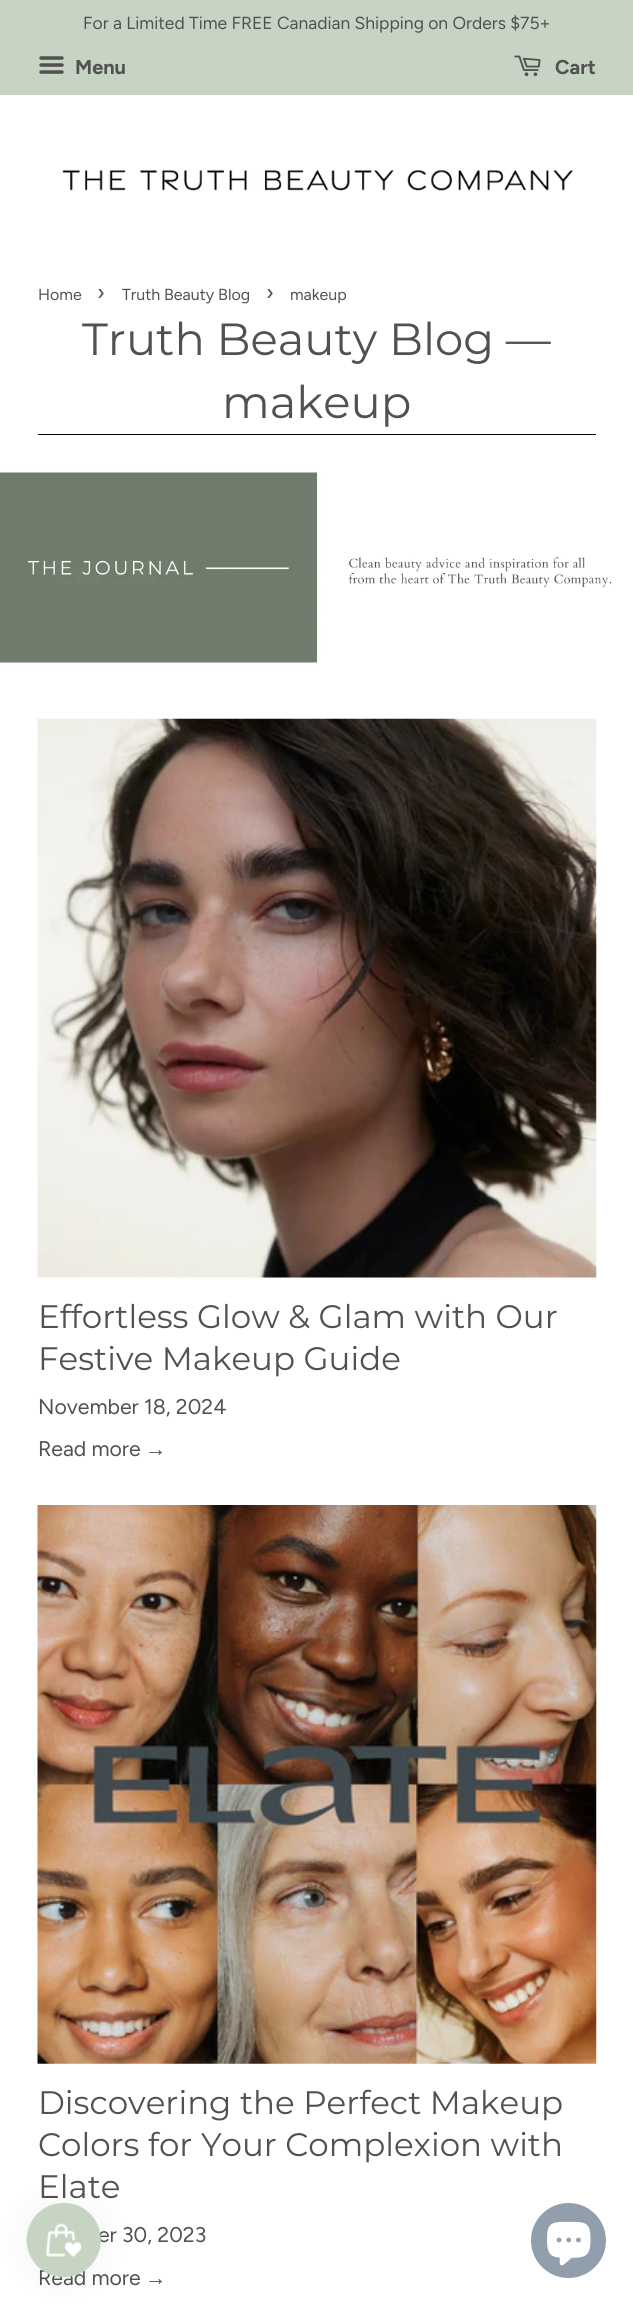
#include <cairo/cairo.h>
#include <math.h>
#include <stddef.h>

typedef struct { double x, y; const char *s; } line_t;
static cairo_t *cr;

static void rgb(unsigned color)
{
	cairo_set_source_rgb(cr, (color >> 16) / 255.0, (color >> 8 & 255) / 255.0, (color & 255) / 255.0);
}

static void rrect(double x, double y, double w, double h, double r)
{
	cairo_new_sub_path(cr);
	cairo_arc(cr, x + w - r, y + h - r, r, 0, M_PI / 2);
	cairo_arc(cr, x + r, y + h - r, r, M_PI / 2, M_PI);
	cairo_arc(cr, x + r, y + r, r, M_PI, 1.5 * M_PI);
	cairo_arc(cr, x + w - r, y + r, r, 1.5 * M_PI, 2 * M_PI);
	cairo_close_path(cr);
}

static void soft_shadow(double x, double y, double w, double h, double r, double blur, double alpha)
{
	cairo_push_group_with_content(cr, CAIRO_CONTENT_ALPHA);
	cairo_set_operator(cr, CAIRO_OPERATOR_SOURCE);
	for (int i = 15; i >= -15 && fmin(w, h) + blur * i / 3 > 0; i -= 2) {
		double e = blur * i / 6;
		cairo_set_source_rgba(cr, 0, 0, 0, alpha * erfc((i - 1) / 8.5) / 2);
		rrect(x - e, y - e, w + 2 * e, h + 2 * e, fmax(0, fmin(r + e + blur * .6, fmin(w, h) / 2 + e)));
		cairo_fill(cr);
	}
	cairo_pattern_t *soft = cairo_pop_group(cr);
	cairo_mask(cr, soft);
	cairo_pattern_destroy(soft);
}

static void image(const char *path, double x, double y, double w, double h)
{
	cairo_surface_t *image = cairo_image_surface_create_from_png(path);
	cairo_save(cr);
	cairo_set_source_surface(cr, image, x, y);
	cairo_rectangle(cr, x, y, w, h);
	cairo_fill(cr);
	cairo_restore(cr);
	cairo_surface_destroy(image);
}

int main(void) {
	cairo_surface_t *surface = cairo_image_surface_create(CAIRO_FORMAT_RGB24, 633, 2303);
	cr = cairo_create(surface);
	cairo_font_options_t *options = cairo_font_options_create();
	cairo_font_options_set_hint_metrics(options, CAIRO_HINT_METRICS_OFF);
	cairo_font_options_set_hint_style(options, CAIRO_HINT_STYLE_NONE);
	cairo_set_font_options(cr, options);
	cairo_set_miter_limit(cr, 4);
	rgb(0xffffff);
	cairo_paint(cr);
	rgb(0xc7d4c3);
	cairo_rectangle(cr, 0, 0, 633, 95);
	cairo_fill(cr);
	image("img/1.png", 39, 56, 25, 18);
	image("img/2.png", 514, 55, 27, 22);
	image("img/3.png", 62, 169, 511, 22);
	rgb(0x000000);
	cairo_rectangle(cr, 38, 434, 558, 1);
	cairo_fill(cr);
	image("img/4.png", 0, 472, 612, 191);
	image("img/5.png", 37, 718, 560, 560);
	image("img/6.png", 37, 1505, 560, 559);
	rgb(0x000000);
	soft_shadow(26, 2203, 75, 75, 37.5, 15.5, 0.05);
	rgb(0x909fab);
	cairo_arc(cr, 568.5, 2240.5, 37.5, 0, 2 * M_PI);
	cairo_fill(cr);
	image("img/8.png", 547, 2221, 44, 45);
	cairo_select_font_face(cr, "Figtree", CAIRO_FONT_SLANT_NORMAL, CAIRO_FONT_WEIGHT_NORMAL);
	cairo_set_font_size(cr, 17.5);
	rgb(0x515151);
	cairo_move_to(cr, 83, 29);
	cairo_show_text(cr, "For a Limited Time FREE Canadian Shipping on Orders $75+");
	cairo_select_font_face(cr, "Figtree", CAIRO_FONT_SLANT_NORMAL, CAIRO_FONT_WEIGHT_BOLD);
	cairo_set_font_size(cr, 20);
	cairo_move_to(cr, 75, 74);
	cairo_show_text(cr, "Menu");
	cairo_move_to(cr, 555, 74);
	cairo_show_text(cr, "Cart");
	cairo_select_font_face(cr, "Figtree", CAIRO_FONT_SLANT_NORMAL, CAIRO_FONT_WEIGHT_NORMAL);
	cairo_set_font_size(cr, 16);
	cairo_move_to(cr, 38, 300);
	cairo_show_text(cr, "Home");
	cairo_set_font_size(cr, 22);
	cairo_move_to(cr, 97, 300);
	cairo_show_text(cr, "›");
	cairo_set_font_size(cr, 16);
	cairo_move_to(cr, 122, 300);
	cairo_show_text(cr, "Truth Beauty Blog");
	cairo_set_font_size(cr, 22);
	cairo_move_to(cr, 266, 300);
	cairo_show_text(cr, "›");
	cairo_set_font_size(cr, 16);
	cairo_move_to(cr, 290, 300);
	cairo_show_text(cr, "makeup");
	cairo_select_font_face(cr, "Montserrat", CAIRO_FONT_SLANT_NORMAL, CAIRO_FONT_WEIGHT_NORMAL);
	cairo_set_font_size(cr, 45);
	cairo_move_to(cr, 82, 355);
	cairo_show_text(cr, "Truth Beauty Blog —");
	cairo_move_to(cr, 222, 418);
	cairo_show_text(cr, "makeup");
	cairo_set_font_size(cr, 32.5);
	cairo_move_to(cr, 38, 1328);
	cairo_show_text(cr, "Effortless Glow & Glam with Our");
	cairo_move_to(cr, 38, 1370);
	cairo_show_text(cr, "Festive Makeup Guide");
	cairo_select_font_face(cr, "Figtree", CAIRO_FONT_SLANT_NORMAL, CAIRO_FONT_WEIGHT_NORMAL);
	cairo_set_font_size(cr, 21.25);
	cairo_move_to(cr, 38, 1414);
	cairo_show_text(cr, "November 18, 2024");
	cairo_move_to(cr, 38, 1456);
	cairo_show_text(cr, "Read more");
	cairo_select_font_face(cr, "Liberation Sans", CAIRO_FONT_SLANT_NORMAL, CAIRO_FONT_WEIGHT_NORMAL);
	cairo_move_to(cr, 145, 1456);
	cairo_show_text(cr, "→");
	cairo_select_font_face(cr, "Montserrat", CAIRO_FONT_SLANT_NORMAL, CAIRO_FONT_WEIGHT_NORMAL);
	cairo_set_font_size(cr, 32.5);
	{
		static const line_t items[] = {
			{38, 2114, "Discovering the Perfect Makeup"},
			{38, 2156, "Colors for Your Complexion with"},
			{38, 2198, "Elate"},
		};
		for (size_t i = 0; i < sizeof items / sizeof *items; i++) {
			cairo_move_to(cr, items[i].x, items[i].y);
			cairo_show_text(cr, items[i].s);
		}
	}
	cairo_select_font_face(cr, "Figtree", CAIRO_FONT_SLANT_NORMAL, CAIRO_FONT_WEIGHT_NORMAL);
	cairo_set_font_size(cr, 21.25);
	cairo_move_to(cr, 98, 2242);
	cairo_show_text(cr, "er 30, 2023");
	cairo_move_to(cr, 38, 2285);
	cairo_show_text(cr, "Read more");
	cairo_select_font_face(cr, "Liberation Sans", CAIRO_FONT_SLANT_NORMAL, CAIRO_FONT_WEIGHT_NORMAL);
	cairo_move_to(cr, 145, 2285);
	cairo_show_text(cr, "→");
	image("img/7.png", 26, 2202, 76, 76);
	cairo_surface_write_to_png(surface, "page.png");
	cairo_font_options_destroy(options);
	cairo_destroy(cr);
	cairo_surface_destroy(surface);
	return 0;
}
